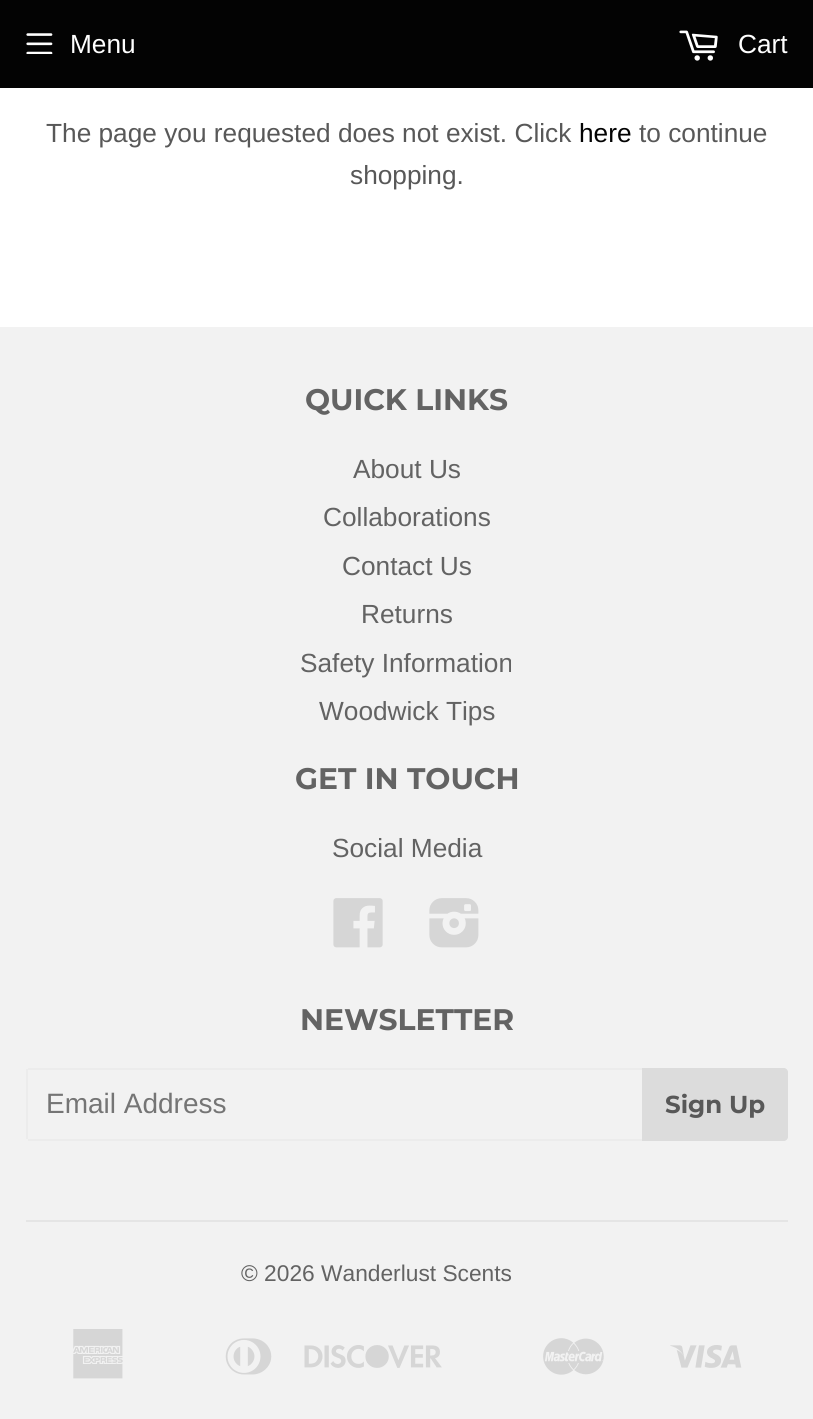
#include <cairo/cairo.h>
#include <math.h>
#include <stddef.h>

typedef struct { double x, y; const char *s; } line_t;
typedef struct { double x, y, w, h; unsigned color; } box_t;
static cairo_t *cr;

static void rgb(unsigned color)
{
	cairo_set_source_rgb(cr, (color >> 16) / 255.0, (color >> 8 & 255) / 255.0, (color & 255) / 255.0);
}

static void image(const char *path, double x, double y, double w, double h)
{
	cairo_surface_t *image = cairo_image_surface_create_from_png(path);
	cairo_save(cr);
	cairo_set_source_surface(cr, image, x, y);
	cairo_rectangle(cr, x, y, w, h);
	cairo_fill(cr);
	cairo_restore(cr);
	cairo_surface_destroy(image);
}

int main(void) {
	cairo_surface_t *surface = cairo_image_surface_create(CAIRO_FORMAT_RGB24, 813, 1419);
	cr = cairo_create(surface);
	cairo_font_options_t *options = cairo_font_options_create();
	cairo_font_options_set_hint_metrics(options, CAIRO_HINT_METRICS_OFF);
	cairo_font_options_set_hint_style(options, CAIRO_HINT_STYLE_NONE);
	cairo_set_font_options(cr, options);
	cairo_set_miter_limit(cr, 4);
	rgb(0xffffff);
	cairo_paint(cr);
	rgb(0x030303);
	cairo_rectangle(cr, 0, 0, 813, 88);
	cairo_fill(cr);
	image("img/1.png", 26, 33, 27, 21);
	image("img/2.png", 679, 30, 39, 31);
	rgb(0xf2f2f2);
	cairo_rectangle(cr, 0, 327, 813, 1092);
	cairo_fill(cr);
	image("img/3.png", 333, 898, 50, 50);
	image("img/4.png", 429, 898, 50, 50);
	{
		static const box_t items[] = {
			{28, 1068, 614, 2, 0xececec},
			{28, 1139, 614, 2, 0xececec},
			{26, 1069, 2, 70, 0xececec},
		};
		for (size_t i = 0; i < sizeof items / sizeof *items; i++) {
			rgb(items[i].color);
			cairo_rectangle(cr, items[i].x, items[i].y, items[i].w, items[i].h);
			cairo_fill(cr);
		}
	}
	rgb(0xdcdcdc);
	cairo_new_path(cr);
	cairo_move_to(cr, 642, 1068);
	cairo_line_to(cr, 784, 1068);
	cairo_curve_to(cr, 786, 1068, 788, 1070, 788, 1072);
	cairo_line_to(cr, 788, 1137);
	cairo_curve_to(cr, 788, 1139, 786, 1141, 784, 1141);
	cairo_line_to(cr, 642, 1141);
	cairo_close_path(cr);
	cairo_fill(cr);
	rgb(0xe5e5e5);
	cairo_rectangle(cr, 26, 1220, 762, 2);
	cairo_fill(cr);
	image("img/5.png", 73, 1329, 50, 50);
	image("img/6.png", 225, 1338, 47, 37);
	image("img/7.png", 304, 1345, 138, 23);
	image("img/8.png", 543, 1338, 61, 37);
	image("img/9.png", 670, 1345, 72, 23);
	cairo_select_font_face(cr, "Liberation Sans", CAIRO_FONT_SLANT_NORMAL, CAIRO_FONT_WEIGHT_NORMAL);
	cairo_set_font_size(cr, 26.25);
	rgb(0xffffff);
	cairo_move_to(cr, 70, 53);
	cairo_show_text(cr, "Menu");
	cairo_move_to(cr, 738, 53);
	cairo_show_text(cr, "Cart");
	rgb(0x585858);
	cairo_move_to(cr, 46, 142);
	cairo_show_text(cr, "The page you requested does not exist. Click");
	rgb(0x030303);
	cairo_move_to(cr, 579, 142);
	cairo_show_text(cr, "here");
	rgb(0x585858);
	cairo_move_to(cr, 639, 142);
	cairo_show_text(cr, "to continue");
	cairo_move_to(cr, 350, 184);
	cairo_show_text(cr, "shopping.");
	cairo_select_font_face(cr, "Montserrat Thin", CAIRO_FONT_SLANT_NORMAL, CAIRO_FONT_WEIGHT_NORMAL);
	cairo_set_font_size(cr, 29.75);
	rgb(0x636363);
	cairo_move_to(cr, 305, 410);
	cairo_show_text(cr, "QUICK LINKS");
	cairo_select_font_face(cr, "Liberation Sans", CAIRO_FONT_SLANT_NORMAL, CAIRO_FONT_WEIGHT_NORMAL);
	cairo_set_font_size(cr, 26.25);
	{
		static const line_t items[] = {
			{353, 478, "About Us"},
			{323, 526, "Collaborations"},
			{342, 575, "Contact Us"},
			{361, 623, "Returns"},
			{300, 672, "Safety Information"},
			{319, 720, "Woodwick Tips"},
		};
		for (size_t i = 0; i < sizeof items / sizeof *items; i++) {
			cairo_move_to(cr, items[i].x, items[i].y);
			cairo_show_text(cr, items[i].s);
		}
	}
	cairo_select_font_face(cr, "Montserrat Thin", CAIRO_FONT_SLANT_NORMAL, CAIRO_FONT_WEIGHT_NORMAL);
	cairo_set_font_size(cr, 29.75);
	cairo_move_to(cr, 295, 789);
	cairo_show_text(cr, "GET IN TOUCH");
	cairo_select_font_face(cr, "Liberation Sans", CAIRO_FONT_SLANT_NORMAL, CAIRO_FONT_WEIGHT_NORMAL);
	cairo_set_font_size(cr, 26.25);
	cairo_move_to(cr, 332, 857);
	cairo_show_text(cr, "Social Media");
	cairo_select_font_face(cr, "Montserrat Thin", CAIRO_FONT_SLANT_NORMAL, CAIRO_FONT_WEIGHT_NORMAL);
	cairo_set_font_size(cr, 29.75);
	cairo_move_to(cr, 300, 1030);
	cairo_show_text(cr, "NEWSLETTER");
	cairo_select_font_face(cr, "Liberation Sans", CAIRO_FONT_SLANT_NORMAL, CAIRO_FONT_WEIGHT_NORMAL);
	cairo_set_font_size(cr, 28);
	rgb(0x757575);
	cairo_move_to(cr, 46, 1113);
	cairo_show_text(cr, "Email Address");
	cairo_select_font_face(cr, "Montserrat Thin", CAIRO_FONT_SLANT_NORMAL, CAIRO_FONT_WEIGHT_NORMAL);
	cairo_set_font_size(cr, 24.5);
	rgb(0x585858);
	cairo_move_to(cr, 665, 1113);
	cairo_show_text(cr, "Sign Up");
	cairo_select_font_face(cr, "Liberation Sans", CAIRO_FONT_SLANT_NORMAL, CAIRO_FONT_WEIGHT_NORMAL);
	cairo_set_font_size(cr, 22.75);
	rgb(0x636363);
	cairo_move_to(cr, 241, 1281);
	cairo_show_text(cr, "© 2026 Wanderlust Scents");
	cairo_surface_write_to_png(surface, "page.png");
	cairo_font_options_destroy(options);
	cairo_destroy(cr);
	cairo_surface_destroy(surface);
	return 0;
}
